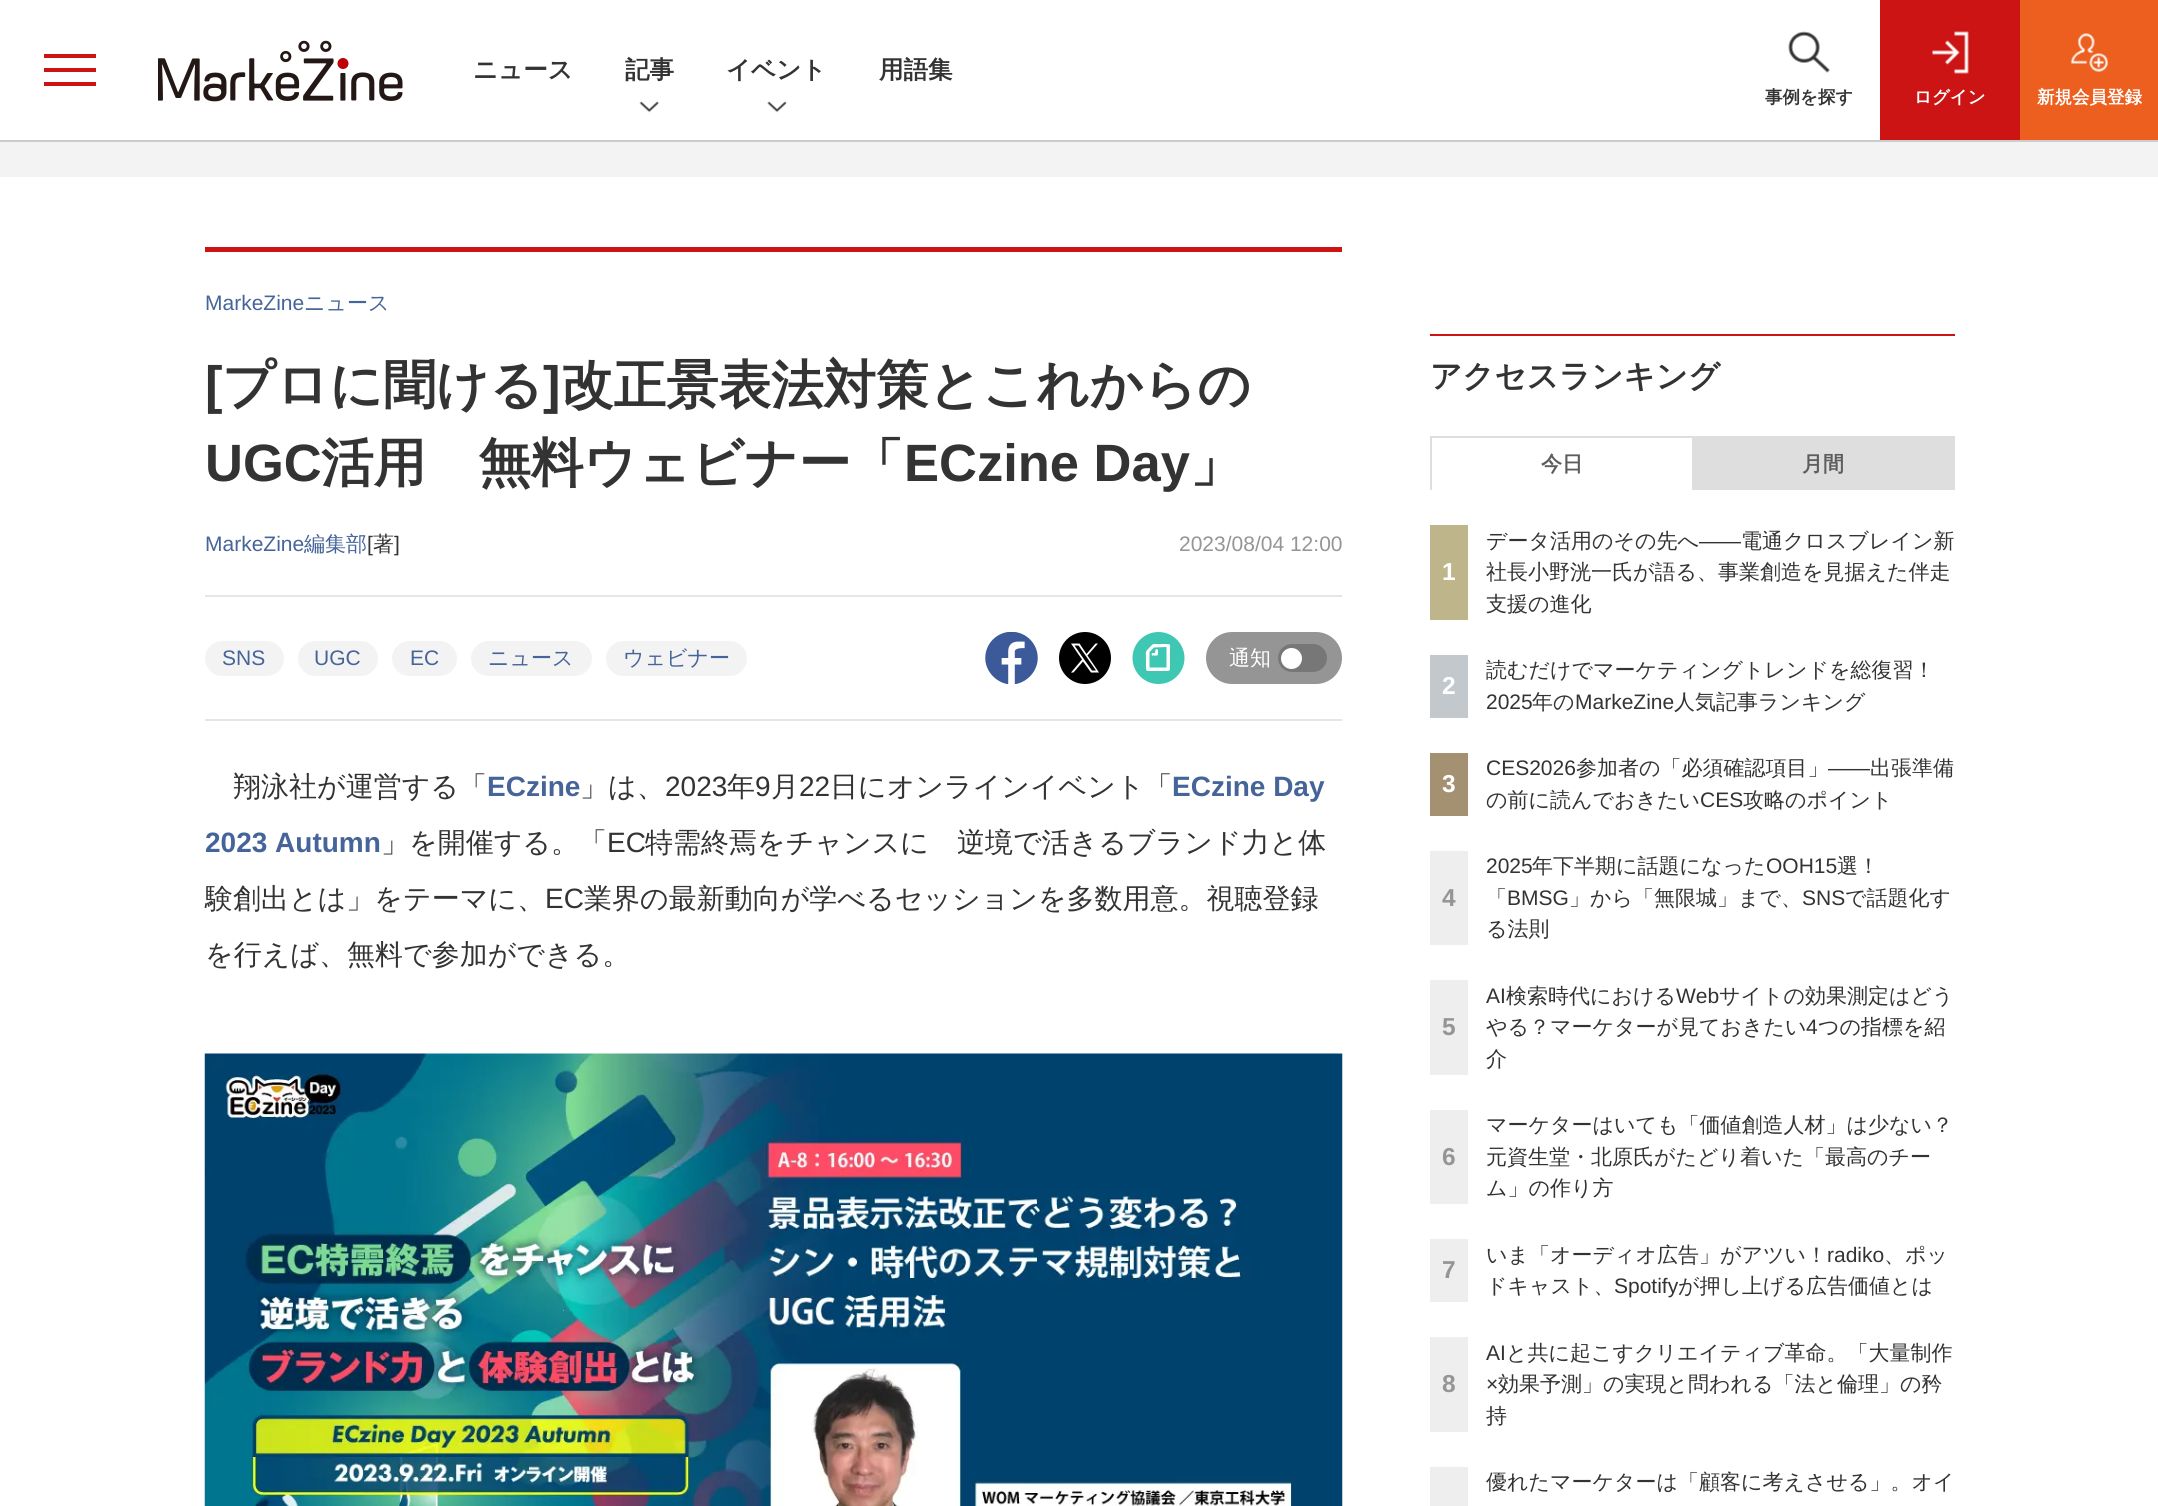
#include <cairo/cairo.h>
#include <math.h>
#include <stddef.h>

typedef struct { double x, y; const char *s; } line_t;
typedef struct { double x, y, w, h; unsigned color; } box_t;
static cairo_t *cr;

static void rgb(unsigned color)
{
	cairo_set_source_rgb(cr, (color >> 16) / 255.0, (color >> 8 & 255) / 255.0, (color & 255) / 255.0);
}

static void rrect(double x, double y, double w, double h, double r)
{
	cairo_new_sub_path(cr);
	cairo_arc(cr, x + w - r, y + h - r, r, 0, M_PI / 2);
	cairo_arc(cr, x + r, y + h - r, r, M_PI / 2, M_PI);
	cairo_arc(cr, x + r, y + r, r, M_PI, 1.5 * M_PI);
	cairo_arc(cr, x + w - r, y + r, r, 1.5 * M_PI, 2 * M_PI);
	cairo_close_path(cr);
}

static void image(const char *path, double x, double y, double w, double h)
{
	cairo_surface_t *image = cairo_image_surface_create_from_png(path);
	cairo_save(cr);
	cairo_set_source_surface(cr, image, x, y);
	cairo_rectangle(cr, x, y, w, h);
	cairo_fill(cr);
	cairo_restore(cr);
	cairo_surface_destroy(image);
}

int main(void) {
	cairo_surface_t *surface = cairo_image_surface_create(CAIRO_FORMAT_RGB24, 2158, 1506);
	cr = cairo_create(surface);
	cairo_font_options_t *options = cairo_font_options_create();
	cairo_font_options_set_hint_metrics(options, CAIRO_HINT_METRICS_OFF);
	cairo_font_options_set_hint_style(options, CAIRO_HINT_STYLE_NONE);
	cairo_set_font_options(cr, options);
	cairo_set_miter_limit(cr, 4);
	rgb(0xffffff);
	cairo_paint(cr);
	{
		static const box_t items[] = {
			{0, 140, 2158, 2, 0xcccccc},
			{44, 68, 52, 4, 0xcc1414},
			{44, 54, 52, 4, 0xcc1414},
			{44, 82, 52, 4, 0xcc1414},
		};
		for (size_t i = 0; i < sizeof items / sizeof *items; i++) {
			rgb(items[i].color);
			cairo_rectangle(cr, items[i].x, items[i].y, items[i].w, items[i].h);
			cairo_fill(cr);
		}
	}
	image("img/1.png", 158, 40, 245, 62);
	image("img/2.png", 639, 101, 20, 12);
	image("img/3.png", 767, 101, 20, 12);
	image("img/4.png", 1788, 31, 42, 42);
	cairo_rectangle(cr, 1880, 0, 140, 140);
	cairo_fill(cr);
	image("img/5.png", 1932, 31, 37, 43);
	rgb(0xec5f1f);
	cairo_rectangle(cr, 2020, 0, 138, 140);
	cairo_fill(cr);
	image("img/6.png", 2070, 33, 39, 39);
	{
		static const box_t items[] = {
			{0, 142, 2158, 35, 0xf3f3f3},
			{205, 247, 1137, 5, 0xcc1414},
			{205, 719, 1137, 2, 0xe5e5e5},
			{205, 595, 1137, 2, 0xe5e5e5},
		};
		for (size_t i = 0; i < sizeof items / sizeof *items; i++) {
			rgb(items[i].color);
			cairo_rectangle(cr, items[i].x, items[i].y, items[i].w, items[i].h);
			cairo_fill(cr);
		}
	}
	rgb(0xf3f3f3);
	rrect(205, 641, 79, 35, 17.5);
	cairo_fill(cr);
	rrect(298, 641, 80, 35, 17.5);
	cairo_fill(cr);
	rrect(392, 641, 65, 35, 17.5);
	cairo_fill(cr);
	rrect(471, 641, 121, 35, 17.5);
	cairo_fill(cr);
	rrect(606, 641, 141, 35, 17.5);
	cairo_fill(cr);
	image("img/7.png", 985, 632, 53, 52);
	rgb(0x000000);
	cairo_arc(cr, 1085, 658, 26, 0, 2 * M_PI);
	cairo_fill(cr);
	rgb(0xffffff);
	cairo_new_path(cr);
	cairo_move_to(cr, 1087.5, 655.5);
	cairo_line_to(cr, 1098, 643.5);
	cairo_line_to(cr, 1095.5, 643.5);
	cairo_line_to(cr, 1086.5, 654);
	cairo_line_to(cr, 1079.5, 643.5);
	cairo_line_to(cr, 1071, 643.5);
	cairo_line_to(cr, 1082, 659.5);
	cairo_line_to(cr, 1071, 672.5);
	cairo_line_to(cr, 1073.5, 672.5);
	cairo_line_to(cr, 1083, 661.5);
	cairo_line_to(cr, 1091, 672.5);
	cairo_line_to(cr, 1099, 672.5);
	cairo_close_path(cr);
	cairo_move_to(cr, 1084.5, 660);
	cairo_line_to(cr, 1074.5, 645.5);
	cairo_line_to(cr, 1078.5, 645.5);
	cairo_line_to(cr, 1096, 670.5);
	cairo_line_to(cr, 1092, 670.5);
	cairo_close_path(cr);
	cairo_fill(cr);
	rgb(0x3ec8b3);
	cairo_arc(cr, 1158.5, 658, 26, 0, 2 * M_PI);
	cairo_fill(cr);
	rgb(0xffffff);
	cairo_set_fill_rule(cr, CAIRO_FILL_RULE_EVEN_ODD);
	cairo_new_path(cr);
	cairo_move_to(cr, 1148, 671);
	cairo_line_to(cr, 1165, 671);
	cairo_curve_to(cr, 1170.5, 671, 1170, 671, 1170, 665);
	cairo_line_to(cr, 1170, 649.5);
	cairo_curve_to(cr, 1170, 644.5, 1171, 644, 1166, 644);
	cairo_line_to(cr, 1154, 644);
	cairo_curve_to(cr, 1152.5, 644, 1151.5, 645.5, 1150.5, 646.5);
	cairo_curve_to(cr, 1144.5, 652.5, 1146, 650.5, 1146, 660.5);
	cairo_line_to(cr, 1146, 666);
	cairo_curve_to(cr, 1146, 667.5, 1145.5, 671, 1148, 671);
	cairo_close_path(cr);
	cairo_move_to(cr, 1154, 647.5);
	cairo_line_to(cr, 1166.5, 647);
	cairo_line_to(cr, 1166.5, 667.5);
	cairo_line_to(cr, 1149.5, 667.5);
	cairo_line_to(cr, 1149.5, 652);
	cairo_close_path(cr);
	cairo_move_to(cr, 1153, 655.5);
	cairo_curve_to(cr, 1157.5, 655.5, 1158, 656.5, 1158, 652);
	cairo_line_to(cr, 1158, 650);
	cairo_curve_to(cr, 1157.5, 649, 1155.5, 649, 1155.5, 650);
	cairo_line_to(cr, 1155, 653);
	cairo_line_to(cr, 1152.5, 653);
	cairo_curve_to(cr, 1151, 653.5, 1151.5, 656, 1153, 655.5);
	cairo_close_path(cr);
	cairo_fill(cr);
	rgb(0x959595);
	rrect(1206, 632, 136, 52, 26);
	cairo_fill(cr);
	rgb(0x777777);
	rrect(1278, 644, 49, 28, 14);
	cairo_fill(cr);
	rgb(0xffffff);
	cairo_arc(cr, 1291.5, 658.5, 10.5, 0, 2 * M_PI);
	cairo_fill(cr);
	image("img/8.png", 204, 1053, 1139, 453);
	{
		static const box_t items[] = {
			{1430, 334, 525, 2, 0xcc1414},
			{1430, 436, 525, 54, 0xdedede},
			{1432, 438, 260, 52, 0xffffff},
			{1430, 525, 38, 95, 0xbfb58b},
			{1430, 655, 38, 63, 0xc2c8cc},
			{1430, 753, 38, 63, 0xa39171},
			{1430, 851, 38, 94, 0xeeeeee},
			{1430, 980, 38, 95, 0xeeeeee},
			{1430, 1110, 38, 94, 0xeeeeee},
			{1430, 1239, 38, 63, 0xeeeeee},
			{1430, 1337, 38, 95, 0xeeeeee},
			{1430, 1467, 38, 39, 0xeeeeee},
		};
		for (size_t i = 0; i < sizeof items / sizeof *items; i++) {
			rgb(items[i].color);
			cairo_rectangle(cr, items[i].x, items[i].y, items[i].w, items[i].h);
			cairo_fill(cr);
		}
	}
	cairo_select_font_face(cr, "WenQuanYi Zen Hei", CAIRO_FONT_SLANT_NORMAL, CAIRO_FONT_WEIGHT_BOLD);
	cairo_set_font_size(cr, 24.5);
	rgb(0x333333);
	{
		static const line_t items[] = {
			{473, 78, "ニュース"},
			{625, 78, "記事"},
			{726, 78, "イベント"},
			{879, 78, "用語集"},
		};
		for (size_t i = 0; i < sizeof items / sizeof *items; i++) {
			cairo_move_to(cr, items[i].x, items[i].y);
			cairo_show_text(cr, items[i].s);
		}
	}
	cairo_set_font_size(cr, 17.5);
	cairo_move_to(cr, 1765, 103);
	cairo_show_text(cr, "事例を探す");
	rgb(0xffffff);
	cairo_move_to(cr, 1914, 103);
	cairo_show_text(cr, "ログイン");
	cairo_move_to(cr, 2037, 103);
	cairo_show_text(cr, "新規会員登録");
	cairo_select_font_face(cr, "Liberation Sans", CAIRO_FONT_SLANT_NORMAL, CAIRO_FONT_WEIGHT_NORMAL);
	cairo_set_font_size(cr, 21);
	rgb(0x456499);
	cairo_move_to(cr, 205, 310);
	cairo_show_text(cr, "MarkeZine");
	cairo_select_font_face(cr, "WenQuanYi Zen Hei Medium", CAIRO_FONT_SLANT_NORMAL, CAIRO_FONT_WEIGHT_NORMAL);
	cairo_move_to(cr, 304, 310);
	cairo_show_text(cr, "ニュース");
	cairo_select_font_face(cr, "Liberation Sans", CAIRO_FONT_SLANT_NORMAL, CAIRO_FONT_WEIGHT_BOLD);
	cairo_set_font_size(cr, 52.5);
	rgb(0x333333);
	cairo_move_to(cr, 205, 403);
	cairo_show_text(cr, "[");
	cairo_select_font_face(cr, "WenQuanYi Zen Hei", CAIRO_FONT_SLANT_NORMAL, CAIRO_FONT_WEIGHT_BOLD);
	cairo_move_to(cr, 222, 403);
	cairo_show_text(cr, "プロに聞ける");
	cairo_select_font_face(cr, "Liberation Sans", CAIRO_FONT_SLANT_NORMAL, CAIRO_FONT_WEIGHT_BOLD);
	cairo_move_to(cr, 543, 403);
	cairo_show_text(cr, "]");
	cairo_select_font_face(cr, "WenQuanYi Zen Hei", CAIRO_FONT_SLANT_NORMAL, CAIRO_FONT_WEIGHT_BOLD);
	cairo_move_to(cr, 561, 403);
	cairo_show_text(cr, "改正景表法対策とこれからの");
	cairo_select_font_face(cr, "Liberation Sans", CAIRO_FONT_SLANT_NORMAL, CAIRO_FONT_WEIGHT_BOLD);
	cairo_move_to(cr, 205, 481);
	cairo_show_text(cr, "UGC");
	cairo_select_font_face(cr, "WenQuanYi Zen Hei", CAIRO_FONT_SLANT_NORMAL, CAIRO_FONT_WEIGHT_BOLD);
	cairo_move_to(cr, 321, 481);
	cairo_show_text(cr, "活用　無料ウェビナー「");
	cairo_select_font_face(cr, "Liberation Sans", CAIRO_FONT_SLANT_NORMAL, CAIRO_FONT_WEIGHT_BOLD);
	cairo_move_to(cr, 904, 481);
	cairo_show_text(cr, "ECzine Day");
	cairo_select_font_face(cr, "WenQuanYi Zen Hei", CAIRO_FONT_SLANT_NORMAL, CAIRO_FONT_WEIGHT_BOLD);
	cairo_move_to(cr, 1190, 481);
	cairo_show_text(cr, "」");
	cairo_select_font_face(cr, "Liberation Sans", CAIRO_FONT_SLANT_NORMAL, CAIRO_FONT_WEIGHT_NORMAL);
	cairo_set_font_size(cr, 21);
	rgb(0x456499);
	cairo_move_to(cr, 205, 551);
	cairo_show_text(cr, "MarkeZine");
	cairo_select_font_face(cr, "WenQuanYi Zen Hei Medium", CAIRO_FONT_SLANT_NORMAL, CAIRO_FONT_WEIGHT_NORMAL);
	cairo_move_to(cr, 304, 551);
	cairo_show_text(cr, "編集部");
	cairo_select_font_face(cr, "Liberation Sans", CAIRO_FONT_SLANT_NORMAL, CAIRO_FONT_WEIGHT_NORMAL);
	rgb(0x333333);
	cairo_move_to(cr, 367, 551);
	cairo_show_text(cr, "[");
	cairo_select_font_face(cr, "WenQuanYi Zen Hei Medium", CAIRO_FONT_SLANT_NORMAL, CAIRO_FONT_WEIGHT_NORMAL);
	cairo_move_to(cr, 373, 551);
	cairo_show_text(cr, "著");
	cairo_select_font_face(cr, "Liberation Sans", CAIRO_FONT_SLANT_NORMAL, CAIRO_FONT_WEIGHT_NORMAL);
	cairo_move_to(cr, 394, 551);
	cairo_show_text(cr, "]");
	rgb(0x959595);
	cairo_move_to(cr, 1179, 551);
	cairo_show_text(cr, "2023/08/04 12:00");
	rgb(0x456499);
	{
		static const line_t items[] = {
			{222, 665, "SNS"},
			{314, 665, "UGC"},
			{410, 665, "EC"},
		};
		for (size_t i = 0; i < sizeof items / sizeof *items; i++) {
			cairo_move_to(cr, items[i].x, items[i].y);
			cairo_show_text(cr, items[i].s);
		}
	}
	cairo_select_font_face(cr, "WenQuanYi Zen Hei Medium", CAIRO_FONT_SLANT_NORMAL, CAIRO_FONT_WEIGHT_NORMAL);
	cairo_move_to(cr, 488, 665);
	cairo_show_text(cr, "ニュース");
	cairo_move_to(cr, 623, 665);
	cairo_show_text(cr, "ウェビナー");
	rgb(0xffffff);
	cairo_move_to(cr, 1229, 665);
	cairo_show_text(cr, "通知");
	cairo_set_font_size(cr, 28);
	rgb(0x333333);
	cairo_move_to(cr, 233, 796);
	cairo_show_text(cr, "翔泳社が運営する「");
	cairo_select_font_face(cr, "Liberation Sans", CAIRO_FONT_SLANT_NORMAL, CAIRO_FONT_WEIGHT_BOLD);
	rgb(0x456499);
	cairo_move_to(cr, 487, 796);
	cairo_show_text(cr, "ECzine");
	cairo_select_font_face(cr, "WenQuanYi Zen Hei Medium", CAIRO_FONT_SLANT_NORMAL, CAIRO_FONT_WEIGHT_NORMAL);
	rgb(0x333333);
	cairo_move_to(cr, 580, 796);
	cairo_show_text(cr, "」は、");
	cairo_select_font_face(cr, "Liberation Sans", CAIRO_FONT_SLANT_NORMAL, CAIRO_FONT_WEIGHT_NORMAL);
	cairo_move_to(cr, 665, 796);
	cairo_show_text(cr, "2023");
	cairo_select_font_face(cr, "WenQuanYi Zen Hei Medium", CAIRO_FONT_SLANT_NORMAL, CAIRO_FONT_WEIGHT_NORMAL);
	cairo_move_to(cr, 727, 796);
	cairo_show_text(cr, "年");
	cairo_select_font_face(cr, "Liberation Sans", CAIRO_FONT_SLANT_NORMAL, CAIRO_FONT_WEIGHT_NORMAL);
	cairo_move_to(cr, 755, 796);
	cairo_show_text(cr, "9");
	cairo_select_font_face(cr, "WenQuanYi Zen Hei Medium", CAIRO_FONT_SLANT_NORMAL, CAIRO_FONT_WEIGHT_NORMAL);
	cairo_move_to(cr, 771, 796);
	cairo_show_text(cr, "月");
	cairo_select_font_face(cr, "Liberation Sans", CAIRO_FONT_SLANT_NORMAL, CAIRO_FONT_WEIGHT_NORMAL);
	cairo_move_to(cr, 799, 796);
	cairo_show_text(cr, "22");
	cairo_select_font_face(cr, "WenQuanYi Zen Hei Medium", CAIRO_FONT_SLANT_NORMAL, CAIRO_FONT_WEIGHT_NORMAL);
	cairo_move_to(cr, 830, 796);
	cairo_show_text(cr, "日にオンラインイベント「");
	cairo_select_font_face(cr, "Liberation Sans", CAIRO_FONT_SLANT_NORMAL, CAIRO_FONT_WEIGHT_BOLD);
	rgb(0x456499);
	cairo_move_to(cr, 1172, 796);
	cairo_show_text(cr, "ECzine Day");
	cairo_move_to(cr, 205, 852);
	cairo_show_text(cr, "2023 Autumn");
	cairo_select_font_face(cr, "WenQuanYi Zen Hei Medium", CAIRO_FONT_SLANT_NORMAL, CAIRO_FONT_WEIGHT_NORMAL);
	rgb(0x333333);
	cairo_move_to(cr, 381, 852);
	cairo_show_text(cr, "」を開催する。「");
	cairo_select_font_face(cr, "Liberation Sans", CAIRO_FONT_SLANT_NORMAL, CAIRO_FONT_WEIGHT_NORMAL);
	cairo_move_to(cr, 607, 852);
	cairo_show_text(cr, "EC");
	cairo_select_font_face(cr, "WenQuanYi Zen Hei Medium", CAIRO_FONT_SLANT_NORMAL, CAIRO_FONT_WEIGHT_NORMAL);
	cairo_move_to(cr, 645, 852);
	cairo_show_text(cr, "特需終焉をチャンスに　逆境で活きるブランド力と体");
	cairo_move_to(cr, 205, 908);
	cairo_show_text(cr, "験創出とは」をテーマに、");
	cairo_select_font_face(cr, "Liberation Sans", CAIRO_FONT_SLANT_NORMAL, CAIRO_FONT_WEIGHT_NORMAL);
	cairo_move_to(cr, 545, 908);
	cairo_show_text(cr, "EC");
	cairo_select_font_face(cr, "WenQuanYi Zen Hei Medium", CAIRO_FONT_SLANT_NORMAL, CAIRO_FONT_WEIGHT_NORMAL);
	cairo_move_to(cr, 584, 908);
	cairo_show_text(cr, "業界の最新動向が学べるセッションを多数用意。視聴登録");
	cairo_move_to(cr, 205, 964);
	cairo_show_text(cr, "を行えば、無料で参加ができる。");
	cairo_select_font_face(cr, "WenQuanYi Zen Hei", CAIRO_FONT_SLANT_NORMAL, CAIRO_FONT_WEIGHT_BOLD);
	cairo_set_font_size(cr, 31.5);
	cairo_move_to(cr, 1430, 387);
	cairo_show_text(cr, "アクセスランキング");
	cairo_set_font_size(cr, 21);
	rgb(0x5d5d5d);
	cairo_move_to(cr, 1541, 471);
	cairo_show_text(cr, "今日");
	cairo_move_to(cr, 1802, 471);
	cairo_show_text(cr, "月間");
	cairo_select_font_face(cr, "Liberation Sans", CAIRO_FONT_SLANT_NORMAL, CAIRO_FONT_WEIGHT_BOLD);
	cairo_set_font_size(cr, 24.5);
	rgb(0xffffff);
	cairo_move_to(cr, 1442, 580);
	cairo_show_text(cr, "1");
	cairo_select_font_face(cr, "WenQuanYi Zen Hei Medium", CAIRO_FONT_SLANT_NORMAL, CAIRO_FONT_WEIGHT_NORMAL);
	cairo_set_font_size(cr, 21);
	rgb(0x333333);
	cairo_move_to(cr, 1486, 548);
	cairo_show_text(cr, "データ活用のその先へ");
	cairo_select_font_face(cr, "Liberation Sans", CAIRO_FONT_SLANT_NORMAL, CAIRO_FONT_WEIGHT_NORMAL);
	cairo_move_to(cr, 1699, 548);
	cairo_show_text(cr, "――");
	cairo_select_font_face(cr, "WenQuanYi Zen Hei Medium", CAIRO_FONT_SLANT_NORMAL, CAIRO_FONT_WEIGHT_NORMAL);
	{
		static const line_t items[] = {
			{1741, 548, "電通クロスブレイン新"},
			{1486, 579, "社長小野洸一氏が語る、事業創造を見据えた伴走"},
			{1486, 611, "支援の進化"},
		};
		for (size_t i = 0; i < sizeof items / sizeof *items; i++) {
			cairo_move_to(cr, items[i].x, items[i].y);
			cairo_show_text(cr, items[i].s);
		}
	}
	cairo_select_font_face(cr, "Liberation Sans", CAIRO_FONT_SLANT_NORMAL, CAIRO_FONT_WEIGHT_BOLD);
	cairo_set_font_size(cr, 24.5);
	rgb(0xffffff);
	cairo_move_to(cr, 1442, 694);
	cairo_show_text(cr, "2");
	cairo_select_font_face(cr, "WenQuanYi Zen Hei Medium", CAIRO_FONT_SLANT_NORMAL, CAIRO_FONT_WEIGHT_NORMAL);
	cairo_set_font_size(cr, 21);
	rgb(0x333333);
	cairo_move_to(cr, 1486, 677);
	cairo_show_text(cr, "読むだけでマーケティングトレンドを総復習！");
	cairo_select_font_face(cr, "Liberation Sans", CAIRO_FONT_SLANT_NORMAL, CAIRO_FONT_WEIGHT_NORMAL);
	cairo_move_to(cr, 1486, 709);
	cairo_show_text(cr, "2025");
	cairo_select_font_face(cr, "WenQuanYi Zen Hei Medium", CAIRO_FONT_SLANT_NORMAL, CAIRO_FONT_WEIGHT_NORMAL);
	cairo_move_to(cr, 1532, 709);
	cairo_show_text(cr, "年の");
	cairo_select_font_face(cr, "Liberation Sans", CAIRO_FONT_SLANT_NORMAL, CAIRO_FONT_WEIGHT_NORMAL);
	cairo_move_to(cr, 1575, 709);
	cairo_show_text(cr, "MarkeZine");
	cairo_select_font_face(cr, "WenQuanYi Zen Hei Medium", CAIRO_FONT_SLANT_NORMAL, CAIRO_FONT_WEIGHT_NORMAL);
	cairo_move_to(cr, 1674, 709);
	cairo_show_text(cr, "人気記事ランキング");
	cairo_select_font_face(cr, "Liberation Sans", CAIRO_FONT_SLANT_NORMAL, CAIRO_FONT_WEIGHT_BOLD);
	cairo_set_font_size(cr, 24.5);
	rgb(0xffffff);
	cairo_move_to(cr, 1442, 792);
	cairo_show_text(cr, "3");
	cairo_select_font_face(cr, "Liberation Sans", CAIRO_FONT_SLANT_NORMAL, CAIRO_FONT_WEIGHT_NORMAL);
	cairo_set_font_size(cr, 21);
	rgb(0x333333);
	cairo_move_to(cr, 1486, 775);
	cairo_show_text(cr, "CES2026");
	cairo_select_font_face(cr, "WenQuanYi Zen Hei Medium", CAIRO_FONT_SLANT_NORMAL, CAIRO_FONT_WEIGHT_NORMAL);
	cairo_move_to(cr, 1576, 775);
	cairo_show_text(cr, "参加者の「必須確認項目」");
	cairo_select_font_face(cr, "Liberation Sans", CAIRO_FONT_SLANT_NORMAL, CAIRO_FONT_WEIGHT_NORMAL);
	cairo_move_to(cr, 1828, 775);
	cairo_show_text(cr, "――");
	cairo_select_font_face(cr, "WenQuanYi Zen Hei Medium", CAIRO_FONT_SLANT_NORMAL, CAIRO_FONT_WEIGHT_NORMAL);
	cairo_move_to(cr, 1870, 775);
	cairo_show_text(cr, "出張準備");
	cairo_move_to(cr, 1486, 807);
	cairo_show_text(cr, "の前に読んでおきたい");
	cairo_select_font_face(cr, "Liberation Sans", CAIRO_FONT_SLANT_NORMAL, CAIRO_FONT_WEIGHT_NORMAL);
	cairo_move_to(cr, 1700, 807);
	cairo_show_text(cr, "CES");
	cairo_select_font_face(cr, "WenQuanYi Zen Hei Medium", CAIRO_FONT_SLANT_NORMAL, CAIRO_FONT_WEIGHT_NORMAL);
	cairo_move_to(cr, 1743, 807);
	cairo_show_text(cr, "攻略のポイント");
	cairo_select_font_face(cr, "Liberation Sans", CAIRO_FONT_SLANT_NORMAL, CAIRO_FONT_WEIGHT_BOLD);
	cairo_set_font_size(cr, 24.5);
	rgb(0x959595);
	cairo_move_to(cr, 1442, 906);
	cairo_show_text(cr, "4");
	cairo_select_font_face(cr, "Liberation Sans", CAIRO_FONT_SLANT_NORMAL, CAIRO_FONT_WEIGHT_NORMAL);
	cairo_set_font_size(cr, 21);
	rgb(0x333333);
	cairo_move_to(cr, 1486, 873);
	cairo_show_text(cr, "2025");
	cairo_select_font_face(cr, "WenQuanYi Zen Hei Medium", CAIRO_FONT_SLANT_NORMAL, CAIRO_FONT_WEIGHT_NORMAL);
	cairo_move_to(cr, 1532, 873);
	cairo_show_text(cr, "年下半期に話題になった");
	cairo_select_font_face(cr, "Liberation Sans", CAIRO_FONT_SLANT_NORMAL, CAIRO_FONT_WEIGHT_NORMAL);
	cairo_move_to(cr, 1766, 873);
	cairo_show_text(cr, "OOH15");
	cairo_select_font_face(cr, "WenQuanYi Zen Hei Medium", CAIRO_FONT_SLANT_NORMAL, CAIRO_FONT_WEIGHT_NORMAL);
	cairo_move_to(cr, 1837, 873);
	cairo_show_text(cr, "選！");
	cairo_move_to(cr, 1486, 905);
	cairo_show_text(cr, "「");
	cairo_select_font_face(cr, "Liberation Sans", CAIRO_FONT_SLANT_NORMAL, CAIRO_FONT_WEIGHT_NORMAL);
	cairo_move_to(cr, 1507, 905);
	cairo_show_text(cr, "BMSG");
	cairo_select_font_face(cr, "WenQuanYi Zen Hei Medium", CAIRO_FONT_SLANT_NORMAL, CAIRO_FONT_WEIGHT_NORMAL);
	cairo_move_to(cr, 1569, 905);
	cairo_show_text(cr, "」から「無限城」まで、");
	cairo_select_font_face(cr, "Liberation Sans", CAIRO_FONT_SLANT_NORMAL, CAIRO_FONT_WEIGHT_NORMAL);
	cairo_move_to(cr, 1802, 905);
	cairo_show_text(cr, "SNS");
	cairo_select_font_face(cr, "WenQuanYi Zen Hei Medium", CAIRO_FONT_SLANT_NORMAL, CAIRO_FONT_WEIGHT_NORMAL);
	cairo_move_to(cr, 1845, 905);
	cairo_show_text(cr, "で話題化す");
	cairo_move_to(cr, 1486, 936);
	cairo_show_text(cr, "る法則");
	cairo_select_font_face(cr, "Liberation Sans", CAIRO_FONT_SLANT_NORMAL, CAIRO_FONT_WEIGHT_BOLD);
	cairo_set_font_size(cr, 24.5);
	rgb(0x959595);
	cairo_move_to(cr, 1442, 1035);
	cairo_show_text(cr, "5");
	cairo_select_font_face(cr, "Liberation Sans", CAIRO_FONT_SLANT_NORMAL, CAIRO_FONT_WEIGHT_NORMAL);
	cairo_set_font_size(cr, 21);
	rgb(0x333333);
	cairo_move_to(cr, 1486, 1003);
	cairo_show_text(cr, "AI");
	cairo_select_font_face(cr, "WenQuanYi Zen Hei Medium", CAIRO_FONT_SLANT_NORMAL, CAIRO_FONT_WEIGHT_NORMAL);
	cairo_move_to(cr, 1506, 1003);
	cairo_show_text(cr, "検索時代における");
	cairo_select_font_face(cr, "Liberation Sans", CAIRO_FONT_SLANT_NORMAL, CAIRO_FONT_WEIGHT_NORMAL);
	cairo_move_to(cr, 1676, 1003);
	cairo_show_text(cr, "Web");
	cairo_select_font_face(cr, "WenQuanYi Zen Hei Medium", CAIRO_FONT_SLANT_NORMAL, CAIRO_FONT_WEIGHT_NORMAL);
	cairo_move_to(cr, 1719, 1003);
	cairo_show_text(cr, "サイトの効果測定はどう");
	cairo_move_to(cr, 1486, 1034);
	cairo_show_text(cr, "やる？マーケターが見ておきたい");
	cairo_select_font_face(cr, "Liberation Sans", CAIRO_FONT_SLANT_NORMAL, CAIRO_FONT_WEIGHT_NORMAL);
	cairo_move_to(cr, 1806, 1034);
	cairo_show_text(cr, "4");
	cairo_select_font_face(cr, "WenQuanYi Zen Hei Medium", CAIRO_FONT_SLANT_NORMAL, CAIRO_FONT_WEIGHT_NORMAL);
	cairo_move_to(cr, 1818, 1034);
	cairo_show_text(cr, "つの指標を紹");
	cairo_move_to(cr, 1486, 1066);
	cairo_show_text(cr, "介");
	cairo_select_font_face(cr, "Liberation Sans", CAIRO_FONT_SLANT_NORMAL, CAIRO_FONT_WEIGHT_BOLD);
	cairo_set_font_size(cr, 24.5);
	rgb(0x959595);
	cairo_move_to(cr, 1442, 1165);
	cairo_show_text(cr, "6");
	cairo_select_font_face(cr, "WenQuanYi Zen Hei Medium", CAIRO_FONT_SLANT_NORMAL, CAIRO_FONT_WEIGHT_NORMAL);
	cairo_set_font_size(cr, 21);
	rgb(0x333333);
	{
		static const line_t items[] = {
			{1486, 1132, "マーケターはいても「価値創造人材」は少ない？"},
			{1486, 1164, "元資生堂・北原氏がたどり着いた「最高のチー"},
			{1486, 1195, "ム」の作り方"},
		};
		for (size_t i = 0; i < sizeof items / sizeof *items; i++) {
			cairo_move_to(cr, items[i].x, items[i].y);
			cairo_show_text(cr, items[i].s);
		}
	}
	cairo_select_font_face(cr, "Liberation Sans", CAIRO_FONT_SLANT_NORMAL, CAIRO_FONT_WEIGHT_BOLD);
	cairo_set_font_size(cr, 24.5);
	rgb(0x959595);
	cairo_move_to(cr, 1442, 1278);
	cairo_show_text(cr, "7");
	cairo_select_font_face(cr, "WenQuanYi Zen Hei Medium", CAIRO_FONT_SLANT_NORMAL, CAIRO_FONT_WEIGHT_NORMAL);
	cairo_set_font_size(cr, 21);
	rgb(0x333333);
	cairo_move_to(cr, 1486, 1262);
	cairo_show_text(cr, "いま「オーディオ広告」がアツい！");
	cairo_select_font_face(cr, "Liberation Sans", CAIRO_FONT_SLANT_NORMAL, CAIRO_FONT_WEIGHT_NORMAL);
	cairo_move_to(cr, 1827, 1262);
	cairo_show_text(cr, "radiko");
	cairo_select_font_face(cr, "WenQuanYi Zen Hei Medium", CAIRO_FONT_SLANT_NORMAL, CAIRO_FONT_WEIGHT_NORMAL);
	cairo_move_to(cr, 1884, 1262);
	cairo_show_text(cr, "、ポッ");
	cairo_move_to(cr, 1486, 1293);
	cairo_show_text(cr, "ドキャスト、");
	cairo_select_font_face(cr, "Liberation Sans", CAIRO_FONT_SLANT_NORMAL, CAIRO_FONT_WEIGHT_NORMAL);
	cairo_move_to(cr, 1614, 1293);
	cairo_show_text(cr, "Spotify");
	cairo_select_font_face(cr, "WenQuanYi Zen Hei Medium", CAIRO_FONT_SLANT_NORMAL, CAIRO_FONT_WEIGHT_NORMAL);
	cairo_move_to(cr, 1678, 1293);
	cairo_show_text(cr, "が押し上げる広告価値とは");
	cairo_select_font_face(cr, "Liberation Sans", CAIRO_FONT_SLANT_NORMAL, CAIRO_FONT_WEIGHT_BOLD);
	cairo_set_font_size(cr, 24.5);
	rgb(0x959595);
	cairo_move_to(cr, 1442, 1392);
	cairo_show_text(cr, "8");
	cairo_select_font_face(cr, "Liberation Sans", CAIRO_FONT_SLANT_NORMAL, CAIRO_FONT_WEIGHT_NORMAL);
	cairo_set_font_size(cr, 21);
	rgb(0x333333);
	cairo_move_to(cr, 1486, 1360);
	cairo_show_text(cr, "AI");
	cairo_select_font_face(cr, "WenQuanYi Zen Hei Medium", CAIRO_FONT_SLANT_NORMAL, CAIRO_FONT_WEIGHT_NORMAL);
	cairo_move_to(cr, 1506, 1360);
	cairo_show_text(cr, "と共に起こすクリエイティブ革命。「大量制作");
	cairo_select_font_face(cr, "Liberation Sans", CAIRO_FONT_SLANT_NORMAL, CAIRO_FONT_WEIGHT_NORMAL);
	cairo_move_to(cr, 1486, 1391);
	cairo_show_text(cr, "×");
	cairo_select_font_face(cr, "WenQuanYi Zen Hei Medium", CAIRO_FONT_SLANT_NORMAL, CAIRO_FONT_WEIGHT_NORMAL);
	{
		static const line_t items[] = {
			{1498, 1391, "効果予測」の実現と問われる「法と倫理」の矜"},
			{1486, 1423, "持"},
			{1486, 1489, "優れたマーケターは「顧客に考えさせる」。オイ"},
		};
		for (size_t i = 0; i < sizeof items / sizeof *items; i++) {
			cairo_move_to(cr, items[i].x, items[i].y);
			cairo_show_text(cr, items[i].s);
		}
	}
	cairo_surface_write_to_png(surface, "page.png");
	cairo_font_options_destroy(options);
	cairo_destroy(cr);
	cairo_surface_destroy(surface);
	return 0;
}
